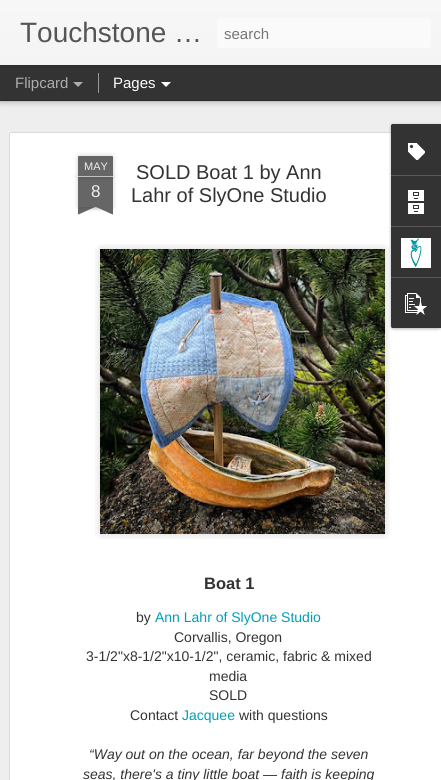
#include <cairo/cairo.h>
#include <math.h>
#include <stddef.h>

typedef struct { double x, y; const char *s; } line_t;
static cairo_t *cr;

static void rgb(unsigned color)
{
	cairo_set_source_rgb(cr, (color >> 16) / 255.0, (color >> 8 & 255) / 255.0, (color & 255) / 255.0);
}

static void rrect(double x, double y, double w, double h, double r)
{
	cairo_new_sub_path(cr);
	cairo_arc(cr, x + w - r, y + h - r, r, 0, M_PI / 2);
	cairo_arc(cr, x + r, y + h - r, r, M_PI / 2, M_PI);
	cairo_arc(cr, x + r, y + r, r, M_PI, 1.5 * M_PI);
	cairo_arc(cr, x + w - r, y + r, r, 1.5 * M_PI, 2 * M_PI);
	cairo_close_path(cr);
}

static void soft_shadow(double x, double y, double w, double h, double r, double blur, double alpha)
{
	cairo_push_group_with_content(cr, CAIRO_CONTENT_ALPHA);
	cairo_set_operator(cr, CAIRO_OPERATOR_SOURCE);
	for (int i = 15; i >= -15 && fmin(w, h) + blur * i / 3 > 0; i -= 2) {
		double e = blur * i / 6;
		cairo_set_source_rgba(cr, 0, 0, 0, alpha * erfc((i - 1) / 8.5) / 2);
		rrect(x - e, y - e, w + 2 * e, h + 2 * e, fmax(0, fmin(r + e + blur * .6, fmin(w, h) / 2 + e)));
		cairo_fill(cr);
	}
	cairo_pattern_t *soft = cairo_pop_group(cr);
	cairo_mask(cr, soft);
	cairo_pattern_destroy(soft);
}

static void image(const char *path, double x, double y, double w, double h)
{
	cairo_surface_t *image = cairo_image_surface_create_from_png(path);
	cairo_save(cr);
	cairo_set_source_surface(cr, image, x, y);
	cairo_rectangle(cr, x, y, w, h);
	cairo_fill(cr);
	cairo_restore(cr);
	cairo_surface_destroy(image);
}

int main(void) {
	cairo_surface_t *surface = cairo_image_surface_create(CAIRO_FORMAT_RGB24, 441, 780);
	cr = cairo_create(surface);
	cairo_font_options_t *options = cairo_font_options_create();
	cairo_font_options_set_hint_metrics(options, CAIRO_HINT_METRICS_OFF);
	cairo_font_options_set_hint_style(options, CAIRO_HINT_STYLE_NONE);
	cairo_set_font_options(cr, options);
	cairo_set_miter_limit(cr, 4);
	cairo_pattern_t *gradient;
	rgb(0x333333);
	cairo_paint(cr);
	rgb(0xeeeeee);
	cairo_rectangle(cr, 0, 101, 441, 679);
	cairo_fill(cr);
	rgb(0x000000);
	soft_shadow(0, 65, 441, 35, 0, 4, 0.5);
	rgb(0x333333);
	cairo_rectangle(cr, 0, 65, 441, 35);
	cairo_fill(cr);
	rgb(0x999999);
	cairo_rectangle(cr, 98, 73, 1, 20);
	cairo_fill(cr);
	rgb(0x000000);
	soft_shadow(0, 0, 441, 65, 0, 2.5, 0.3);
	gradient = cairo_pattern_create_linear(0, 0, 0, 65);
	cairo_pattern_add_color_stop_rgba(gradient, 0, 0.969, 0.969, 0.969, 1);
	cairo_pattern_add_color_stop_rgba(gradient, 1, 0.957, 0.957, 0.957, 1);
	cairo_set_source(cr, gradient);
	cairo_pattern_destroy(gradient);
	cairo_rectangle(cr, 0, 0, 441, 65);
	cairo_fill(cr);
	rgb(0xfafafa);
	rrect(217, 18, 214, 30, 3);
	cairo_fill(cr);
	rgb(0xadadad);
	cairo_new_path(cr);
	cairo_move_to(cr, 73, 82);
	cairo_line_to(cr, 83, 82);
	cairo_line_to(cr, 78, 87);
	cairo_close_path(cr);
	cairo_fill(cr);
	rgb(0xffffff);
	cairo_new_path(cr);
	cairo_move_to(cr, 161, 82);
	cairo_line_to(cr, 171, 82);
	cairo_line_to(cr, 166, 87);
	cairo_close_path(cr);
	cairo_fill(cr);
	cairo_rectangle(cr, 8, 131, 433, 649);
	cairo_fill(cr);
	image("img/1.png", 8, 131, 383, 649);
	rgb(0x000000);
	soft_shadow(78, 177, 35, 30, 0, 2.5, 0.2);
	rgb(0x666666);
	cairo_rectangle(cr, 78, 177, 35, 30);
	cairo_fill(cr);
	rgb(0x000000);
	soft_shadow(78, 156, 35, 21, 1, 2.5, 0.2);
	rgb(0x666666);
	cairo_new_path(cr);
	cairo_move_to(cr, 79, 156);
	cairo_line_to(cr, 112, 156);
	cairo_curve_to(cr, 112.5, 156, 113, 156.5, 113, 157);
	cairo_line_to(cr, 113, 177);
	cairo_line_to(cr, 78, 177);
	cairo_line_to(cr, 78, 157);
	cairo_curve_to(cr, 78, 156.5, 78.5, 156, 79, 156);
	cairo_close_path(cr);
	cairo_fill(cr);
	rgb(0xc2c2c2);
	cairo_rectangle(cr, 78, 176, 35, 1);
	cairo_fill(cr);
	cairo_save(cr);
	cairo_rectangle(cr, 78, 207, 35, 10);
	cairo_clip(cr);
	rgb(0x000000);
	soft_shadow(69, 197, 50, 10, 0, 2.5, 0.2);
	cairo_restore(cr);
	cairo_save(cr);
	cairo_rectangle(cr, 78, 207, 35, 10);
	cairo_clip(cr);
	rgb(0x666666);
	cairo_new_path(cr);
	cairo_move_to(cr, 69, 208);
	cairo_line_to(cr, 115, 187);
	cairo_line_to(cr, 119, 196);
	cairo_line_to(cr, 73, 217);
	cairo_close_path(cr);
	cairo_fill(cr);
	cairo_restore(cr);
	cairo_save(cr);
	cairo_rectangle(cr, 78, 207, 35, 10);
	cairo_clip(cr);
	rgb(0x000000);
	soft_shadow(72, 197, 50, 10, 0, 2.5, 0.2);
	cairo_restore(cr);
	cairo_save(cr);
	cairo_rectangle(cr, 78, 207, 35, 10);
	cairo_clip(cr);
	rgb(0x666666);
	cairo_new_path(cr);
	cairo_move_to(cr, 76, 187);
	cairo_line_to(cr, 122, 208);
	cairo_line_to(cr, 118, 217);
	cairo_line_to(cr, 72, 196);
	cairo_close_path(cr);
	cairo_fill(cr);
	cairo_restore(cr);
	image("img/2.png", 95, 244, 295, 295);
	image("img/3.png", 100, 249, 285, 285);
	rgb(0x000000);
	soft_shadow(391, 125, 50, 204, 2, 1.5, 0.3);
	rgb(0x333333);
	cairo_new_path(cr);
	cairo_move_to(cr, 393, 124);
	cairo_line_to(cr, 441, 124);
	cairo_line_to(cr, 441, 328);
	cairo_line_to(cr, 393, 328);
	cairo_curve_to(cr, 392, 328, 391, 327, 391, 326);
	cairo_line_to(cr, 391, 126);
	cairo_curve_to(cr, 391, 125, 392, 124, 393, 124);
	cairo_close_path(cr);
	cairo_fill(cr);
	cairo_new_path(cr);
	cairo_move_to(cr, 393, 124);
	cairo_line_to(cr, 441, 124);
	cairo_line_to(cr, 441, 175);
	cairo_line_to(cr, 391, 175);
	cairo_line_to(cr, 391, 126);
	cairo_curve_to(cr, 391, 125, 392, 124, 393, 124);
	cairo_close_path(cr);
	cairo_fill(cr);
	image("img/4.png", 408, 143, 17, 17);
	rgb(0x585858);
	cairo_rectangle(cr, 391, 175, 50, 1);
	cairo_fill(cr);
	image("img/5.png", 408, 190, 16, 24);
	cairo_rectangle(cr, 391, 226, 50, 1);
	cairo_fill(cr);
	image("img/6.png", 401, 238, 30, 30);
	rgb(0x333333);
	cairo_new_path(cr);
	cairo_move_to(cr, 391, 277);
	cairo_line_to(cr, 441, 277);
	cairo_line_to(cr, 441, 328);
	cairo_line_to(cr, 393, 328);
	cairo_curve_to(cr, 392, 328, 391, 327, 391, 326);
	cairo_close_path(cr);
	cairo_fill(cr);
	rgb(0x585858);
	cairo_rectangle(cr, 391, 277, 50, 1);
	cairo_fill(cr);
	image("img/7.png", 405, 293, 22, 22);
	cairo_select_font_face(cr, "Liberation Sans", CAIRO_FONT_SLANT_NORMAL, CAIRO_FONT_WEIGHT_NORMAL);
	cairo_set_font_size(cr, 28);
	rgb(0x555555);
	cairo_move_to(cr, 20, 42);
	cairo_show_text(cr, "Touchstone …");
	cairo_set_font_size(cr, 15);
	rgb(0x757575);
	cairo_move_to(cr, 224, 39);
	cairo_show_text(cr, "search");
	rgb(0xadadad);
	cairo_move_to(cr, 15, 88);
	cairo_show_text(cr, "Flipcard");
	rgb(0xffffff);
	cairo_move_to(cr, 113, 88);
	cairo_show_text(cr, "Pages");
	cairo_set_font_size(cr, 11);
	rgb(0xeeeeee);
	cairo_move_to(cr, 84, 170);
	cairo_show_text(cr, "MAY");
	cairo_set_font_size(cr, 17);
	cairo_move_to(cr, 91, 197);
	cairo_show_text(cr, "8");
	cairo_set_font_size(cr, 20);
	rgb(0x333333);
	cairo_move_to(cr, 136, 179);
	cairo_show_text(cr, "SOLD Boat 1 by Ann");
	cairo_move_to(cr, 131, 202);
	cairo_show_text(cr, "Lahr of SlyOne Studio");
	cairo_select_font_face(cr, "Liberation Sans", CAIRO_FONT_SLANT_NORMAL, CAIRO_FONT_WEIGHT_BOLD);
	cairo_set_font_size(cr, 16.5);
	cairo_move_to(cr, 204, 589);
	cairo_show_text(cr, "Boat 1");
	cairo_select_font_face(cr, "Liberation Sans", CAIRO_FONT_SLANT_NORMAL, CAIRO_FONT_WEIGHT_NORMAL);
	cairo_set_font_size(cr, 14);
	cairo_move_to(cr, 136, 622);
	cairo_show_text(cr, "by");
	rgb(0x009eb8);
	cairo_move_to(cr, 155, 622);
	cairo_show_text(cr, "Ann Lahr of SlyOne Studio");
	rgb(0x333333);
	{
		static const line_t items[] = {
			{174, 642, "Corvallis, Oregon"},
			{86, 661, "3-1/2\"x8-1/2\"x10-1/2\", ceramic, fabric & mixed"},
			{209, 681, "media"},
			{209, 700, "SOLD"},
			{130, 720, "Contact"},
		};
		for (size_t i = 0; i < sizeof items / sizeof *items; i++) {
			cairo_move_to(cr, items[i].x, items[i].y);
			cairo_show_text(cr, items[i].s);
		}
	}
	rgb(0x009eb8);
	cairo_move_to(cr, 182, 720);
	cairo_show_text(cr, "Jacquee");
	rgb(0x333333);
	cairo_move_to(cr, 239, 720);
	cairo_show_text(cr, "with questions");
	cairo_select_font_face(cr, "Liberation Sans", CAIRO_FONT_SLANT_ITALIC, CAIRO_FONT_WEIGHT_NORMAL);
	cairo_move_to(cr, 89, 759);
	cairo_show_text(cr, "“Way out on the ocean, far beyond the seven");
	cairo_move_to(cr, 83, 779);
	cairo_show_text(cr, "seas, there's a tiny little boat — faith is keeping");
	cairo_surface_write_to_png(surface, "page.png");
	cairo_font_options_destroy(options);
	cairo_destroy(cr);
	cairo_surface_destroy(surface);
	return 0;
}
